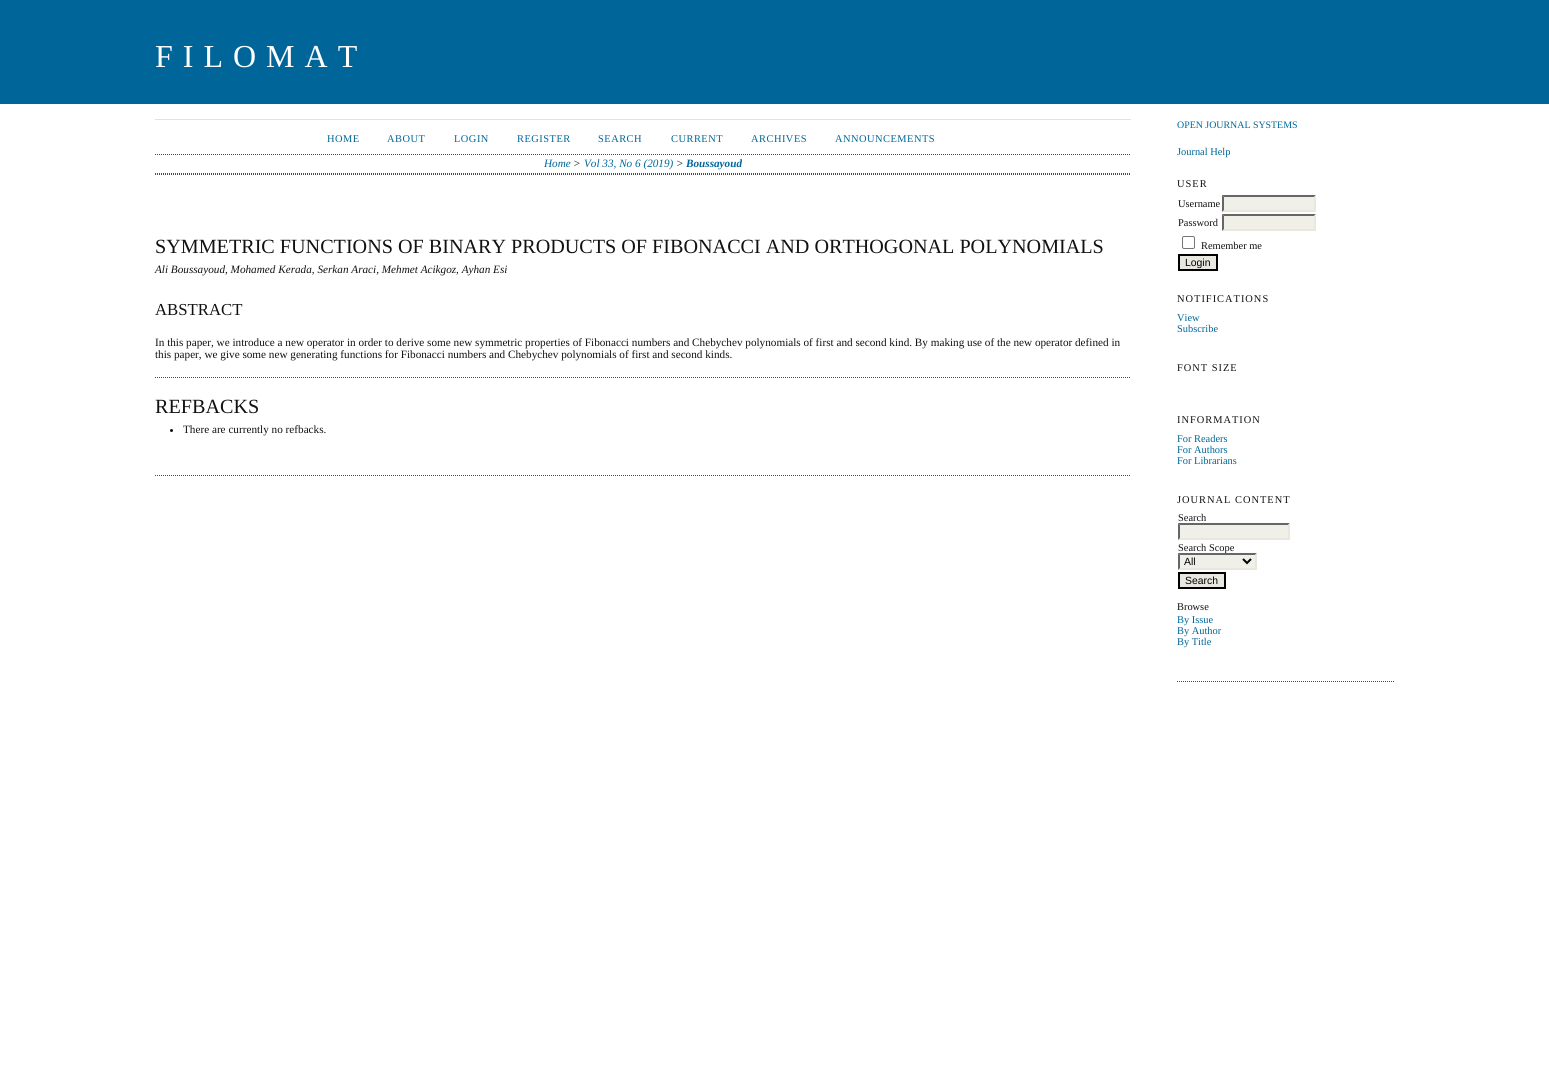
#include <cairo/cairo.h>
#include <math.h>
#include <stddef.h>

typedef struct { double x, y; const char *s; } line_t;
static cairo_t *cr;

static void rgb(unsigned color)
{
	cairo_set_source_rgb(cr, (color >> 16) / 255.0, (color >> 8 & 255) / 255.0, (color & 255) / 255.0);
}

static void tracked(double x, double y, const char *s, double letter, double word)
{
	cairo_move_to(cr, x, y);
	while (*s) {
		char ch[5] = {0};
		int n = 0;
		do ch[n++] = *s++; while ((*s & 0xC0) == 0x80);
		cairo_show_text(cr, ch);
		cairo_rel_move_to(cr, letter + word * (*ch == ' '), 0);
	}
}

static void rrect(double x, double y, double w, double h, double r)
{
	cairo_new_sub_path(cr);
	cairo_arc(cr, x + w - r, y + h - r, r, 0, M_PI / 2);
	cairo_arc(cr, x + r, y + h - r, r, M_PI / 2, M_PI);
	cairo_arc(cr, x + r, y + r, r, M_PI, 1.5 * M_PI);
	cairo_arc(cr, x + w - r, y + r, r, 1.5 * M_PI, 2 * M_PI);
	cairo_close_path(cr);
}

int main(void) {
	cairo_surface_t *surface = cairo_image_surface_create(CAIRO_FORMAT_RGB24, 1549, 1071);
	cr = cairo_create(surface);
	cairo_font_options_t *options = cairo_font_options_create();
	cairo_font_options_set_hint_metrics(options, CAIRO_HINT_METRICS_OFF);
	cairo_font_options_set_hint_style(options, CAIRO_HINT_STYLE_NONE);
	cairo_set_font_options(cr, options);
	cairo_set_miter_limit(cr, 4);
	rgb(0xffffff);
	cairo_paint(cr);
	rgb(0x006699);
	cairo_rectangle(cr, 0, 0, 1549, 104);
	cairo_fill(cr);
	rgb(0xffff00);
	cairo_rectangle(cr, 155, 119, 976, 1);
	cairo_fill(cr);
	cairo_new_path(cr);
	cairo_move_to(cr, 155, 475.5);
	cairo_line_to(cr, 1131, 475.5);
	rgb(0x006699);
	cairo_set_line_width(cr, 1);
	cairo_set_dash(cr, (double[]){1, 1}, 2, 0);
	cairo_stroke(cr);
	cairo_new_path(cr);
	cairo_move_to(cr, 155, 154.5);
	cairo_line_to(cr, 1131, 154.5);
	cairo_stroke(cr);
	cairo_new_path(cr);
	cairo_move_to(cr, 155, 173.5);
	cairo_line_to(cr, 1131, 173.5);
	cairo_stroke(cr);
	cairo_new_path(cr);
	cairo_move_to(cr, 155, 174.5);
	cairo_line_to(cr, 1131, 174.5);
	cairo_stroke(cr);
	cairo_new_path(cr);
	cairo_move_to(cr, 155, 377.5);
	cairo_line_to(cr, 1131, 377.5);
	cairo_stroke(cr);
	rgb(0x111111);
	cairo_arc(cr, 171.5, 430.5, 1.5, 0, 2 * M_PI);
	cairo_fill(cr);
	cairo_new_path(cr);
	cairo_move_to(cr, 1177, 681.5);
	cairo_line_to(cr, 1394, 681.5);
	rgb(0x006699);
	cairo_stroke(cr);
	rgb(0xf0f0e8);
	cairo_rectangle(cr, 1222, 195, 94, 17);
	cairo_fill(cr);
	rgb(0x666666);
	cairo_new_path(cr);
	cairo_move_to(cr, 1222, 195);
	cairo_line_to(cr, 1316, 195);
	cairo_line_to(cr, 1314, 197);
	cairo_line_to(cr, 1224, 197);
	cairo_close_path(cr);
	cairo_fill(cr);
	rgb(0xe8e8e1);
	cairo_new_path(cr);
	cairo_move_to(cr, 1316, 195);
	cairo_line_to(cr, 1316, 212);
	cairo_line_to(cr, 1314, 210);
	cairo_line_to(cr, 1314, 197);
	cairo_close_path(cr);
	cairo_fill(cr);
	cairo_new_path(cr);
	cairo_move_to(cr, 1316, 212);
	cairo_line_to(cr, 1222, 212);
	cairo_line_to(cr, 1224, 210);
	cairo_line_to(cr, 1314, 210);
	cairo_close_path(cr);
	cairo_fill(cr);
	rgb(0x666666);
	cairo_new_path(cr);
	cairo_move_to(cr, 1222, 212);
	cairo_line_to(cr, 1222, 195);
	cairo_line_to(cr, 1224, 197);
	cairo_line_to(cr, 1224, 210);
	cairo_close_path(cr);
	cairo_fill(cr);
	rgb(0xf0f0e8);
	cairo_rectangle(cr, 1222, 214, 94, 17);
	cairo_fill(cr);
	rgb(0x666666);
	cairo_new_path(cr);
	cairo_move_to(cr, 1222, 214);
	cairo_line_to(cr, 1316, 214);
	cairo_line_to(cr, 1314, 216);
	cairo_line_to(cr, 1224, 216);
	cairo_close_path(cr);
	cairo_fill(cr);
	rgb(0xe8e8e1);
	cairo_new_path(cr);
	cairo_move_to(cr, 1316, 214);
	cairo_line_to(cr, 1316, 231);
	cairo_line_to(cr, 1314, 229);
	cairo_line_to(cr, 1314, 216);
	cairo_close_path(cr);
	cairo_fill(cr);
	cairo_new_path(cr);
	cairo_move_to(cr, 1316, 231);
	cairo_line_to(cr, 1222, 231);
	cairo_line_to(cr, 1224, 229);
	cairo_line_to(cr, 1314, 229);
	cairo_close_path(cr);
	cairo_fill(cr);
	rgb(0x666666);
	cairo_new_path(cr);
	cairo_move_to(cr, 1222, 231);
	cairo_line_to(cr, 1222, 214);
	cairo_line_to(cr, 1224, 216);
	cairo_line_to(cr, 1224, 229);
	cairo_close_path(cr);
	cairo_fill(cr);
	rrect(1182.5, 236.5, 12, 12, 1.5);
	rgb(0x767676);
	cairo_set_dash(cr, NULL, 0, 0);
	cairo_stroke(cr);
	rgb(0xe8e8e1);
	cairo_rectangle(cr, 1179, 255, 38, 15);
	cairo_fill_preserve(cr);
	rgb(0x000000);
	cairo_set_line_width(cr, 2);
	cairo_stroke(cr);
	rgb(0xf0f0e8);
	cairo_rectangle(cr, 1178, 523, 112, 17);
	cairo_fill(cr);
	rgb(0x666666);
	cairo_new_path(cr);
	cairo_move_to(cr, 1178, 523);
	cairo_line_to(cr, 1290, 523);
	cairo_line_to(cr, 1288, 525);
	cairo_line_to(cr, 1180, 525);
	cairo_close_path(cr);
	cairo_fill(cr);
	rgb(0xe8e8e1);
	cairo_new_path(cr);
	cairo_move_to(cr, 1290, 523);
	cairo_line_to(cr, 1290, 540);
	cairo_line_to(cr, 1288, 538);
	cairo_line_to(cr, 1288, 525);
	cairo_close_path(cr);
	cairo_fill(cr);
	cairo_new_path(cr);
	cairo_move_to(cr, 1290, 540);
	cairo_line_to(cr, 1178, 540);
	cairo_line_to(cr, 1180, 538);
	cairo_line_to(cr, 1288, 538);
	cairo_close_path(cr);
	cairo_fill(cr);
	rgb(0x666666);
	cairo_new_path(cr);
	cairo_move_to(cr, 1178, 540);
	cairo_line_to(cr, 1178, 523);
	cairo_line_to(cr, 1180, 525);
	cairo_line_to(cr, 1180, 538);
	cairo_close_path(cr);
	cairo_fill(cr);
	rgb(0xe8e8e1);
	cairo_rectangle(cr, 1179, 573, 46, 15);
	cairo_fill_preserve(cr);
	rgb(0x000000);
	cairo_stroke(cr);
	cairo_select_font_face(cr, "Liberation Serif", CAIRO_FONT_SLANT_NORMAL, CAIRO_FONT_WEIGHT_NORMAL);
	cairo_set_font_size(cr, 32);
	rgb(0xffffff);
	tracked(155, 67, "FILOMAT", 10, 0);
	cairo_set_font_size(cr, 10.4);
	rgb(0x006699);
	{
		static const line_t items[] = {
			{327, 142, "HOME"},
			{387, 142, "ABOUT"},
			{454, 142, "LOGIN"},
			{517, 142, "REGISTER"},
			{598, 142, "SEARCH"},
			{671, 142, "CURRENT"},
			{751, 142, "ARCHIVES"},
			{835, 142, "ANNOUNCEMENTS"},
		};
		for (size_t i = 0; i < sizeof items / sizeof *items; i++) {
			tracked(items[i].x, items[i].y, items[i].s, 0.5, 0);
		}
	}
	cairo_select_font_face(cr, "Liberation Serif", CAIRO_FONT_SLANT_ITALIC, CAIRO_FONT_WEIGHT_NORMAL);
	cairo_set_font_size(cr, 11.2);
	cairo_move_to(cr, 544, 167);
	cairo_show_text(cr, "Home");
	rgb(0x111111);
	cairo_move_to(cr, 573, 167);
	cairo_show_text(cr, ">");
	rgb(0x006699);
	cairo_move_to(cr, 584, 167);
	cairo_show_text(cr, "Vol 33, No 6 (2019)");
	rgb(0x111111);
	cairo_move_to(cr, 676, 167);
	cairo_show_text(cr, ">");
	cairo_select_font_face(cr, "Liberation Serif", CAIRO_FONT_SLANT_ITALIC, CAIRO_FONT_WEIGHT_BOLD);
	rgb(0x006699);
	cairo_move_to(cr, 686, 167);
	cairo_show_text(cr, "Boussayoud");
	cairo_select_font_face(cr, "Liberation Serif", CAIRO_FONT_SLANT_NORMAL, CAIRO_FONT_WEIGHT_NORMAL);
	cairo_set_font_size(cr, 20.15);
	rgb(0x111111);
	cairo_move_to(cr, 155, 253);
	cairo_show_text(cr, "SYMMETRIC FUNCTIONS OF BINARY PRODUCTS OF FIBONACCI AND ORTHOGONAL POLYNOMIALS");
	cairo_select_font_face(cr, "Liberation Serif", CAIRO_FONT_SLANT_ITALIC, CAIRO_FONT_WEIGHT_NORMAL);
	cairo_set_font_size(cr, 11.2);
	cairo_move_to(cr, 155, 273);
	cairo_show_text(cr, "Ali Boussayoud, Mohamed Kerada, Serkan Araci, Mehmet Acikgoz, Ayhan Esi");
	cairo_select_font_face(cr, "Liberation Serif", CAIRO_FONT_SLANT_NORMAL, CAIRO_FONT_WEIGHT_NORMAL);
	cairo_set_font_size(cr, 16.75);
	cairo_move_to(cr, 155, 315);
	cairo_show_text(cr, "ABSTRACT");
	cairo_set_font_size(cr, 11.2);
	cairo_move_to(cr, 155, 346);
	cairo_show_text(cr, "In this paper, we introduce a new operator in order to derive some new symmetric properties of Fibonacci numbers and Chebychev polynomials of first and second kind. By making use of the new operator defined in");
	cairo_move_to(cr, 155, 358);
	cairo_show_text(cr, "this paper, we give some new generating functions for Fibonacci numbers and Chebychev polynomials of first and second kinds.");
	cairo_set_font_size(cr, 20.15);
	cairo_move_to(cr, 155, 413);
	cairo_show_text(cr, "REFBACKS");
	cairo_set_font_size(cr, 11.2);
	cairo_move_to(cr, 183, 433);
	cairo_show_text(cr, "There are currently no refbacks.");
	cairo_set_font_size(cr, 9.9);
	rgb(0x006699);
	cairo_move_to(cr, 1177, 128);
	cairo_show_text(cr, "OPEN JOURNAL SYSTEMS");
	cairo_set_font_size(cr, 10.4);
	cairo_move_to(cr, 1177, 155);
	cairo_show_text(cr, "Journal Help");
	rgb(0x111111);
	tracked(1177, 187, "USER", 1, 0);
	{
		static const line_t items[] = {
			{1178, 207, "Username"},
			{1178, 226, "Password"},
			{1201, 249, "Remember me"},
		};
		for (size_t i = 0; i < sizeof items / sizeof *items; i++) {
			cairo_move_to(cr, items[i].x, items[i].y);
			cairo_show_text(cr, items[i].s);
		}
	}
	cairo_select_font_face(cr, "Liberation Sans", CAIRO_FONT_SLANT_NORMAL, CAIRO_FONT_WEIGHT_NORMAL);
	rgb(0x000000);
	cairo_move_to(cr, 1185, 266);
	cairo_show_text(cr, "Login");
	cairo_select_font_face(cr, "Liberation Serif", CAIRO_FONT_SLANT_NORMAL, CAIRO_FONT_WEIGHT_NORMAL);
	rgb(0x111111);
	tracked(1177, 302, "NOTIFICATIONS", 1, 0);
	rgb(0x006699);
	cairo_move_to(cr, 1177, 321);
	cairo_show_text(cr, "View");
	cairo_move_to(cr, 1177, 332);
	cairo_show_text(cr, "Subscribe");
	rgb(0x111111);
	tracked(1177, 371, "FONT SIZE", 1, 0);
	tracked(1177, 423, "INFORMATION", 1, 0);
	rgb(0x006699);
	{
		static const line_t items[] = {
			{1177, 442, "For Readers"},
			{1177, 453, "For Authors"},
			{1177, 464, "For Librarians"},
		};
		for (size_t i = 0; i < sizeof items / sizeof *items; i++) {
			cairo_move_to(cr, items[i].x, items[i].y);
			cairo_show_text(cr, items[i].s);
		}
	}
	rgb(0x111111);
	tracked(1177, 503, "JOURNAL CONTENT", 1, 0);
	cairo_move_to(cr, 1178, 521);
	cairo_show_text(cr, "Search");
	cairo_move_to(cr, 1178, 551);
	cairo_show_text(cr, "Search Scope");
	rgb(0xf0f0e8);
	cairo_rectangle(cr, 1178, 553, 79, 17);
	cairo_fill(cr);
	rgb(0x666666);
	cairo_new_path(cr);
	cairo_move_to(cr, 1178, 553);
	cairo_line_to(cr, 1257, 553);
	cairo_line_to(cr, 1255, 555);
	cairo_line_to(cr, 1180, 555);
	cairo_close_path(cr);
	cairo_fill(cr);
	rgb(0xe8e8e1);
	cairo_new_path(cr);
	cairo_move_to(cr, 1257, 553);
	cairo_line_to(cr, 1257, 570);
	cairo_line_to(cr, 1255, 568);
	cairo_line_to(cr, 1255, 555);
	cairo_close_path(cr);
	cairo_fill(cr);
	cairo_new_path(cr);
	cairo_move_to(cr, 1257, 570);
	cairo_line_to(cr, 1178, 570);
	cairo_line_to(cr, 1180, 568);
	cairo_line_to(cr, 1255, 568);
	cairo_close_path(cr);
	cairo_fill(cr);
	rgb(0x666666);
	cairo_new_path(cr);
	cairo_move_to(cr, 1178, 570);
	cairo_line_to(cr, 1178, 553);
	cairo_line_to(cr, 1180, 555);
	cairo_line_to(cr, 1180, 568);
	cairo_close_path(cr);
	cairo_fill(cr);
	cairo_new_path(cr);
	cairo_move_to(cr, 1243, 559);
	cairo_line_to(cr, 1247, 563);
	cairo_line_to(cr, 1251, 559);
	rgb(0x000000);
	cairo_stroke(cr);
	cairo_select_font_face(cr, "Liberation Sans", CAIRO_FONT_SLANT_NORMAL, CAIRO_FONT_WEIGHT_NORMAL);
	cairo_move_to(cr, 1184, 565);
	cairo_show_text(cr, "All");
	cairo_move_to(cr, 1185, 584);
	cairo_show_text(cr, "Search");
	cairo_select_font_face(cr, "Liberation Serif", CAIRO_FONT_SLANT_NORMAL, CAIRO_FONT_WEIGHT_NORMAL);
	rgb(0x111111);
	cairo_move_to(cr, 1177, 610);
	cairo_show_text(cr, "Browse");
	rgb(0x006699);
	{
		static const line_t items[] = {
			{1177, 623, "By Issue"},
			{1177, 634, "By Author"},
			{1177, 645, "By Title"},
		};
		for (size_t i = 0; i < sizeof items / sizeof *items; i++) {
			cairo_move_to(cr, items[i].x, items[i].y);
			cairo_show_text(cr, items[i].s);
		}
	}
	cairo_surface_write_to_png(surface, "page.png");
	cairo_font_options_destroy(options);
	cairo_destroy(cr);
	cairo_surface_destroy(surface);
	return 0;
}
